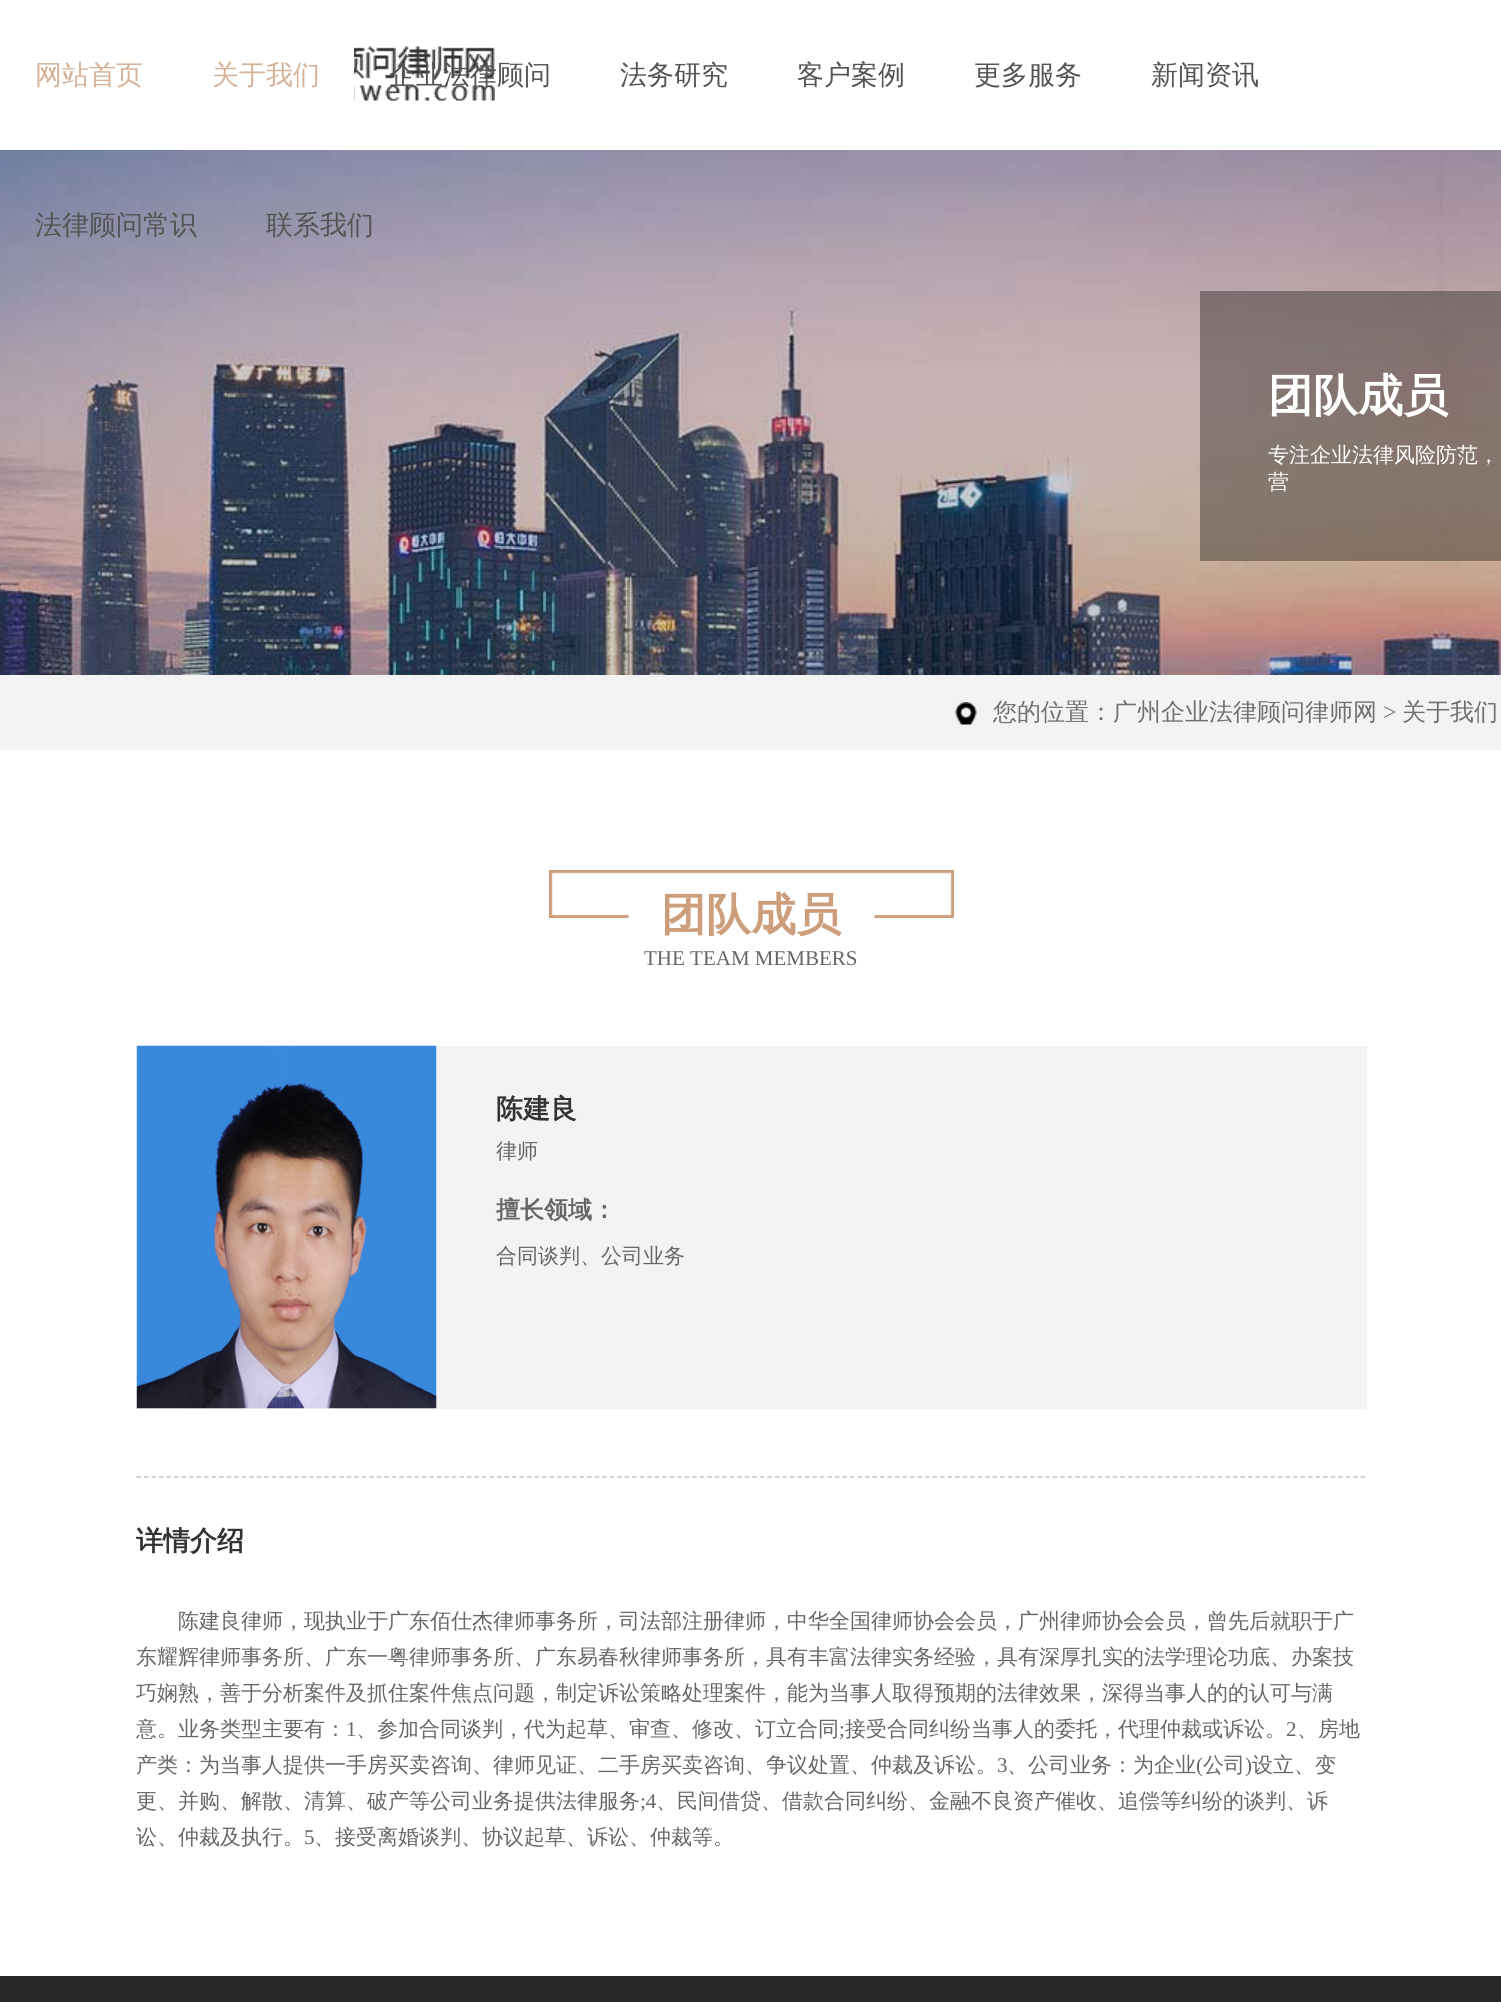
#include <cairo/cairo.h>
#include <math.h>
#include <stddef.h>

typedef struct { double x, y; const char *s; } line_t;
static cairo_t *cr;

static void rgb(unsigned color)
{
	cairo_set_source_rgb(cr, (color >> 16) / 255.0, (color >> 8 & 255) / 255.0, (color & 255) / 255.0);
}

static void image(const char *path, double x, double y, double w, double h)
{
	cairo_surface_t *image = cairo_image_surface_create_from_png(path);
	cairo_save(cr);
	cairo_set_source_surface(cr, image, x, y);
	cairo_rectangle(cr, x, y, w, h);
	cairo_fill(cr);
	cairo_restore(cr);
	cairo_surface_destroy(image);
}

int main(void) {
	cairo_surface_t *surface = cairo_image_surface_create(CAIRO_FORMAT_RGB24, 1501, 2002);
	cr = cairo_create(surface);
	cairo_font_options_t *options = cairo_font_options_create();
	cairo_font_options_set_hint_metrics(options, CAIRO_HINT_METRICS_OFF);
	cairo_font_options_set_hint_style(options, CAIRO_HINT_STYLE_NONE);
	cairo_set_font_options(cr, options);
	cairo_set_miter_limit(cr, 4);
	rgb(0xffffff);
	cairo_paint(cr);
	image("img/1.png", 354, 46, 141, 55);
	image("img/2.png", 0, 150, 1501, 525);
	cairo_set_source_rgba(cr, 0, 0, 0, 0.33);
	cairo_rectangle(cr, 1200, 291, 301, 270);
	cairo_fill(cr);
	rgb(0xf3f3f3);
	cairo_rectangle(cr, 0, 675, 1501, 75);
	cairo_fill(cr);
	image("img/3.png", 955, 702, 22, 23);
	image("img/4.png", 549, 870, 405, 48);
	cairo_rectangle(cr, 137, 1046, 1230, 363);
	cairo_fill(cr);
	image("img/5.png", 136, 1045, 301, 364);
	cairo_new_path(cr);
	cairo_move_to(cr, 136.5, 1477);
	cairo_line_to(cr, 1366.5, 1477);
	rgb(0xc4c4c4);
	cairo_set_line_width(cr, 1.5);
	cairo_set_dash(cr, (double[]){4.5, 3.01}, 2, 0);
	cairo_stroke(cr);
	rgb(0x282828);
	cairo_rectangle(cr, 0, 1976, 1501, 26);
	cairo_fill(cr);
	cairo_select_font_face(cr, "WenQuanYi Zen Hei Medium", CAIRO_FONT_SLANT_NORMAL, CAIRO_FONT_WEIGHT_NORMAL);
	cairo_set_font_size(cr, 27);
	rgb(0xd5b196);
	cairo_move_to(cr, 35, 84);
	cairo_show_text(cr, "网站首页");
	cairo_move_to(cr, 212, 84);
	cairo_show_text(cr, "关于我们");
	rgb(0x535353);
	{
		static const line_t items[] = {
			{389, 84, "企业法律顾问"},
			{620, 84, "法务研究"},
			{797, 84, "客户案例"},
			{974, 84, "更多服务"},
			{1151, 84, "新闻资讯"},
			{35, 234, "法律顾问常识"},
			{266, 234, "联系我们"},
		};
		for (size_t i = 0; i < sizeof items / sizeof *items; i++) {
			cairo_move_to(cr, items[i].x, items[i].y);
			cairo_show_text(cr, items[i].s);
		}
	}
	cairo_select_font_face(cr, "WenQuanYi Zen Hei", CAIRO_FONT_SLANT_NORMAL, CAIRO_FONT_WEIGHT_BOLD);
	cairo_set_font_size(cr, 45);
	rgb(0xffffff);
	cairo_move_to(cr, 1268, 411);
	cairo_show_text(cr, "团队成员");
	cairo_select_font_face(cr, "WenQuanYi Zen Hei Medium", CAIRO_FONT_SLANT_NORMAL, CAIRO_FONT_WEIGHT_NORMAL);
	cairo_set_font_size(cr, 21);
	cairo_move_to(cr, 1268, 462);
	cairo_show_text(cr, "专注企业法律风险防范，");
	cairo_move_to(cr, 1268, 489);
	cairo_show_text(cr, "营");
	cairo_set_font_size(cr, 24);
	rgb(0x6f6f6f);
	cairo_move_to(cr, 993, 720);
	cairo_show_text(cr, "您的位置：广州企业法律顾问律师网");
	cairo_select_font_face(cr, "Liberation Serif", CAIRO_FONT_SLANT_NORMAL, CAIRO_FONT_WEIGHT_NORMAL);
	cairo_move_to(cr, 1383, 720);
	cairo_show_text(cr, ">");
	cairo_select_font_face(cr, "WenQuanYi Zen Hei Medium", CAIRO_FONT_SLANT_NORMAL, CAIRO_FONT_WEIGHT_NORMAL);
	cairo_move_to(cr, 1402, 720);
	cairo_show_text(cr, "关于我们");
	cairo_select_font_face(cr, "WenQuanYi Zen Hei", CAIRO_FONT_SLANT_NORMAL, CAIRO_FONT_WEIGHT_BOLD);
	cairo_set_font_size(cr, 45);
	rgb(0xcd9e7b);
	cairo_move_to(cr, 661, 930);
	cairo_show_text(cr, "团队成员");
	cairo_select_font_face(cr, "Liberation Serif", CAIRO_FONT_SLANT_NORMAL, CAIRO_FONT_WEIGHT_NORMAL);
	cairo_set_font_size(cr, 21);
	rgb(0x666666);
	cairo_move_to(cr, 644, 965);
	cairo_show_text(cr, "THE TEAM MEMBERS");
	cairo_select_font_face(cr, "WenQuanYi Zen Hei", CAIRO_FONT_SLANT_NORMAL, CAIRO_FONT_WEIGHT_BOLD);
	cairo_set_font_size(cr, 27);
	rgb(0x333333);
	cairo_move_to(cr, 496, 1118);
	cairo_show_text(cr, "陈建良");
	cairo_select_font_face(cr, "WenQuanYi Zen Hei Medium", CAIRO_FONT_SLANT_NORMAL, CAIRO_FONT_WEIGHT_NORMAL);
	cairo_set_font_size(cr, 21);
	rgb(0x666666);
	cairo_move_to(cr, 496, 1158);
	cairo_show_text(cr, "律师");
	cairo_select_font_face(cr, "WenQuanYi Zen Hei", CAIRO_FONT_SLANT_NORMAL, CAIRO_FONT_WEIGHT_BOLD);
	cairo_set_font_size(cr, 24);
	cairo_move_to(cr, 496, 1218);
	cairo_show_text(cr, "擅长领域：");
	cairo_select_font_face(cr, "WenQuanYi Zen Hei Medium", CAIRO_FONT_SLANT_NORMAL, CAIRO_FONT_WEIGHT_NORMAL);
	cairo_set_font_size(cr, 21);
	cairo_move_to(cr, 496, 1263);
	cairo_show_text(cr, "合同谈判、公司业务");
	cairo_select_font_face(cr, "WenQuanYi Zen Hei", CAIRO_FONT_SLANT_NORMAL, CAIRO_FONT_WEIGHT_BOLD);
	cairo_set_font_size(cr, 27);
	rgb(0x333333);
	cairo_move_to(cr, 136, 1550);
	cairo_show_text(cr, "详情介绍");
	cairo_select_font_face(cr, "WenQuanYi Zen Hei Medium", CAIRO_FONT_SLANT_NORMAL, CAIRO_FONT_WEIGHT_NORMAL);
	cairo_set_font_size(cr, 21);
	rgb(0x666666);
	{
		static const line_t items[] = {
			{178, 1628, "陈建良律师，现执业于广东佰仕杰律师事务所，司法部注册律师，中华全国律师协会会员，广州律师协会会员，曾先后就职于广"},
			{136, 1664, "东耀辉律师事务所、广东一粤律师事务所、广东易春秋律师事务所，具有丰富法律实务经验，具有深厚扎实的法学理论功底、办案技"},
			{136, 1700, "巧娴熟，善于分析案件及抓住案件焦点问题，制定诉讼策略处理案件，能为当事人取得预期的法律效果，深得当事人的的认可与满"},
			{136, 1736, "意。业务类型主要有："},
		};
		for (size_t i = 0; i < sizeof items / sizeof *items; i++) {
			cairo_move_to(cr, items[i].x, items[i].y);
			cairo_show_text(cr, items[i].s);
		}
	}
	cairo_select_font_face(cr, "Liberation Serif", CAIRO_FONT_SLANT_NORMAL, CAIRO_FONT_WEIGHT_NORMAL);
	cairo_move_to(cr, 346, 1736);
	cairo_show_text(cr, "1");
	cairo_select_font_face(cr, "WenQuanYi Zen Hei Medium", CAIRO_FONT_SLANT_NORMAL, CAIRO_FONT_WEIGHT_NORMAL);
	cairo_move_to(cr, 356, 1736);
	cairo_show_text(cr, "、参加合同谈判，代为起草、审查、修改、订立合同");
	cairo_select_font_face(cr, "Liberation Serif", CAIRO_FONT_SLANT_NORMAL, CAIRO_FONT_WEIGHT_NORMAL);
	cairo_move_to(cr, 839, 1736);
	cairo_show_text(cr, ";");
	cairo_select_font_face(cr, "WenQuanYi Zen Hei Medium", CAIRO_FONT_SLANT_NORMAL, CAIRO_FONT_WEIGHT_NORMAL);
	cairo_move_to(cr, 845, 1736);
	cairo_show_text(cr, "接受合同纠纷当事人的委托，代理仲裁或诉讼。");
	cairo_select_font_face(cr, "Liberation Serif", CAIRO_FONT_SLANT_NORMAL, CAIRO_FONT_WEIGHT_NORMAL);
	cairo_move_to(cr, 1286, 1736);
	cairo_show_text(cr, "2");
	cairo_select_font_face(cr, "WenQuanYi Zen Hei Medium", CAIRO_FONT_SLANT_NORMAL, CAIRO_FONT_WEIGHT_NORMAL);
	cairo_move_to(cr, 1297, 1736);
	cairo_show_text(cr, "、房地");
	cairo_move_to(cr, 136, 1772);
	cairo_show_text(cr, "产类：为当事人提供一手房买卖咨询、律师见证、二手房买卖咨询、争议处置、仲裁及诉讼。");
	cairo_select_font_face(cr, "Liberation Serif", CAIRO_FONT_SLANT_NORMAL, CAIRO_FONT_WEIGHT_NORMAL);
	cairo_move_to(cr, 997, 1772);
	cairo_show_text(cr, "3");
	cairo_select_font_face(cr, "WenQuanYi Zen Hei Medium", CAIRO_FONT_SLANT_NORMAL, CAIRO_FONT_WEIGHT_NORMAL);
	cairo_move_to(cr, 1007, 1772);
	cairo_show_text(cr, "、公司业务：为企业");
	cairo_select_font_face(cr, "Liberation Serif", CAIRO_FONT_SLANT_NORMAL, CAIRO_FONT_WEIGHT_NORMAL);
	cairo_move_to(cr, 1196, 1772);
	cairo_show_text(cr, "(");
	cairo_select_font_face(cr, "WenQuanYi Zen Hei Medium", CAIRO_FONT_SLANT_NORMAL, CAIRO_FONT_WEIGHT_NORMAL);
	cairo_move_to(cr, 1203, 1772);
	cairo_show_text(cr, "公司");
	cairo_select_font_face(cr, "Liberation Serif", CAIRO_FONT_SLANT_NORMAL, CAIRO_FONT_WEIGHT_NORMAL);
	cairo_move_to(cr, 1245, 1772);
	cairo_show_text(cr, ")");
	cairo_select_font_face(cr, "WenQuanYi Zen Hei Medium", CAIRO_FONT_SLANT_NORMAL, CAIRO_FONT_WEIGHT_NORMAL);
	cairo_move_to(cr, 1252, 1772);
	cairo_show_text(cr, "设立、变");
	cairo_move_to(cr, 136, 1808);
	cairo_show_text(cr, "更、并购、解散、清算、破产等公司业务提供法律服务");
	cairo_select_font_face(cr, "Liberation Serif", CAIRO_FONT_SLANT_NORMAL, CAIRO_FONT_WEIGHT_NORMAL);
	cairo_move_to(cr, 640, 1808);
	cairo_show_text(cr, ";4");
	cairo_select_font_face(cr, "WenQuanYi Zen Hei Medium", CAIRO_FONT_SLANT_NORMAL, CAIRO_FONT_WEIGHT_NORMAL);
	cairo_move_to(cr, 656, 1808);
	cairo_show_text(cr, "、民间借贷、借款合同纠纷、金融不良资产催收、追偿等纠纷的谈判、诉");
	cairo_move_to(cr, 136, 1844);
	cairo_show_text(cr, "讼、仲裁及执行。");
	cairo_select_font_face(cr, "Liberation Serif", CAIRO_FONT_SLANT_NORMAL, CAIRO_FONT_WEIGHT_NORMAL);
	cairo_move_to(cr, 304, 1844);
	cairo_show_text(cr, "5");
	cairo_select_font_face(cr, "WenQuanYi Zen Hei Medium", CAIRO_FONT_SLANT_NORMAL, CAIRO_FONT_WEIGHT_NORMAL);
	cairo_move_to(cr, 314, 1844);
	cairo_show_text(cr, "、接受离婚谈判、协议起草、诉讼、仲裁等。");
	cairo_surface_write_to_png(surface, "page.png");
	cairo_font_options_destroy(options);
	cairo_destroy(cr);
	cairo_surface_destroy(surface);
	return 0;
}
